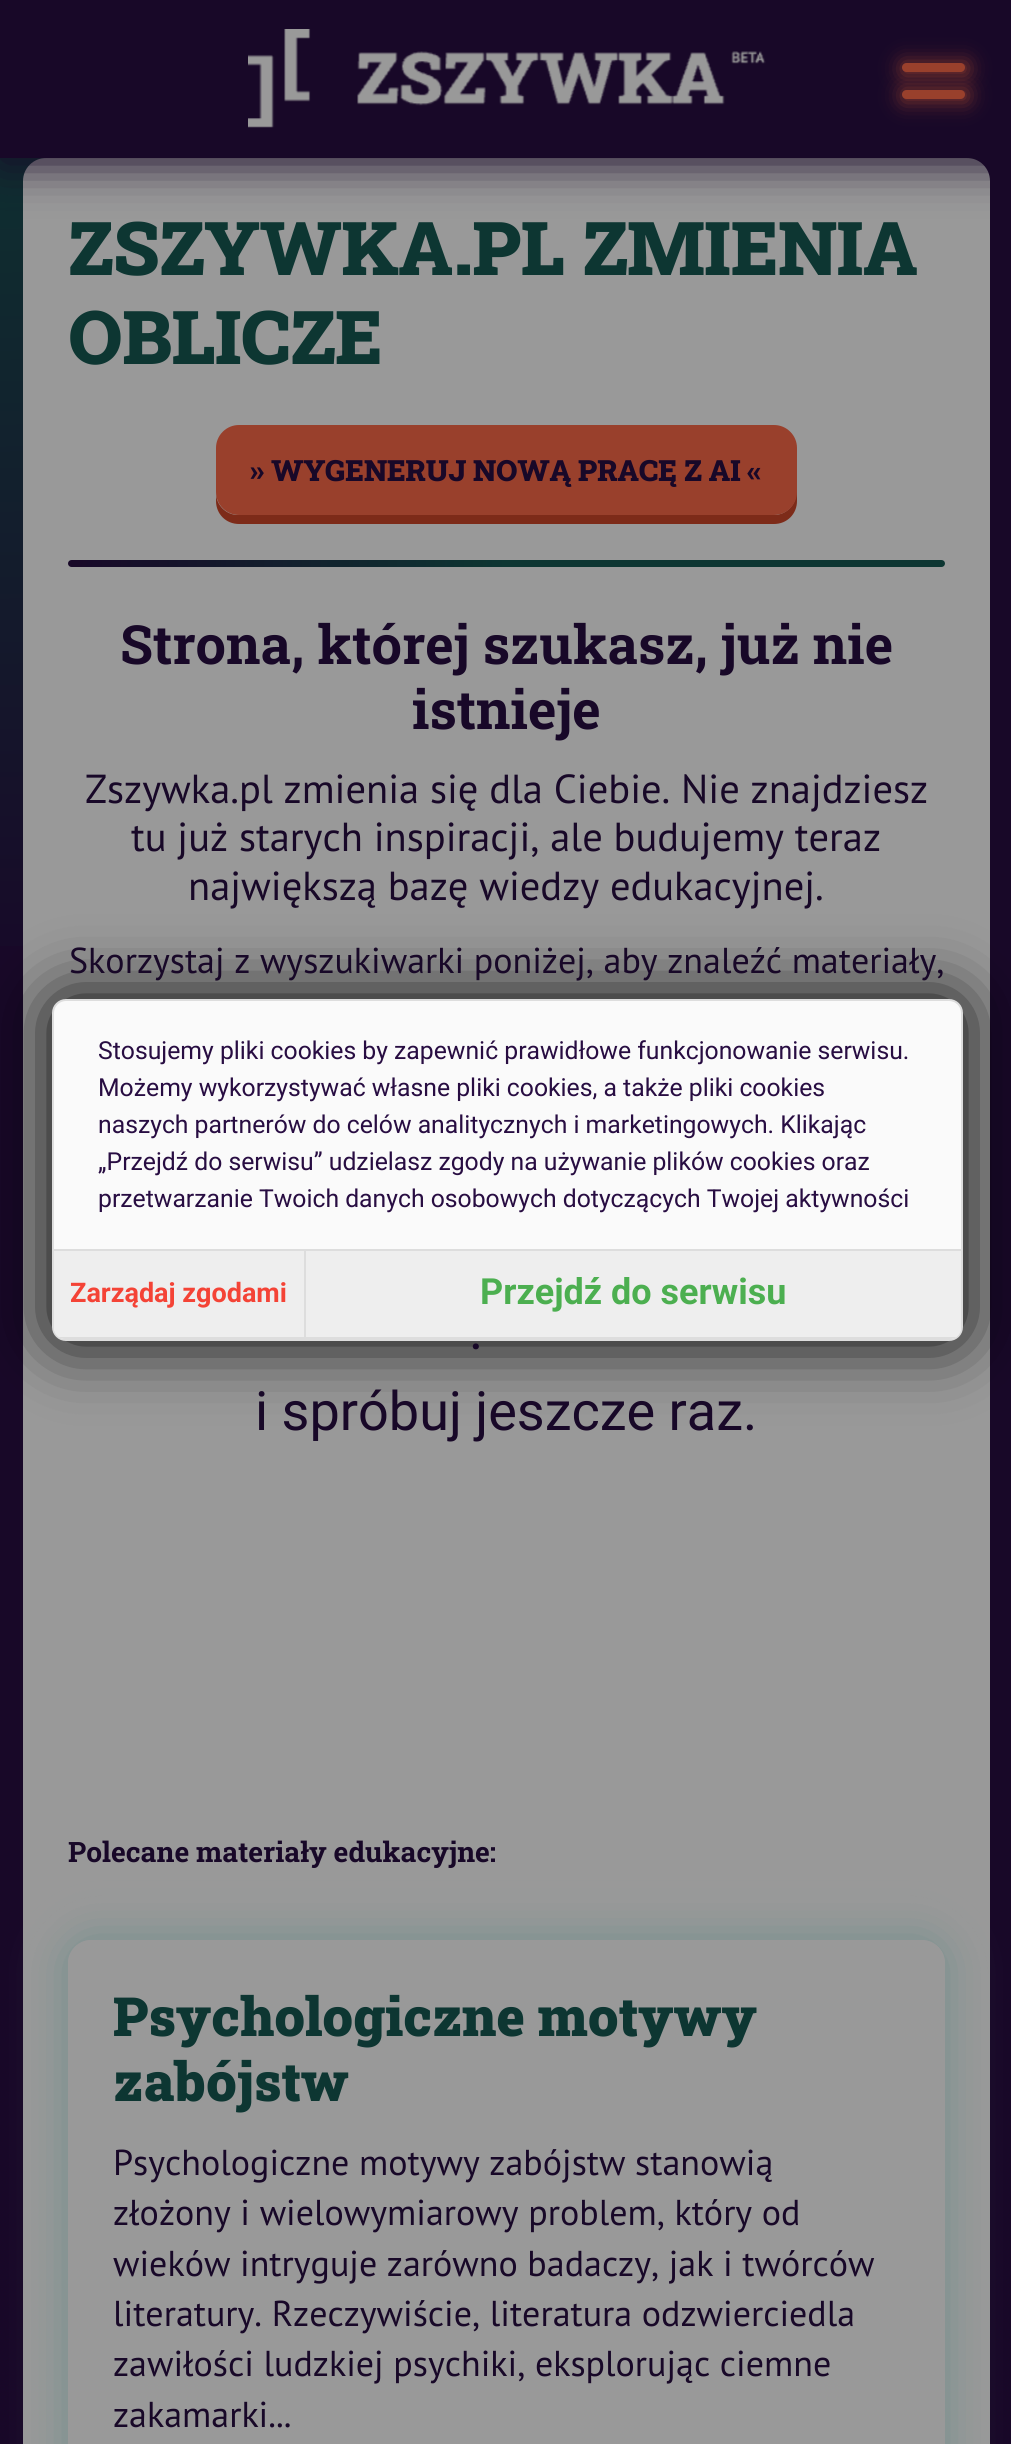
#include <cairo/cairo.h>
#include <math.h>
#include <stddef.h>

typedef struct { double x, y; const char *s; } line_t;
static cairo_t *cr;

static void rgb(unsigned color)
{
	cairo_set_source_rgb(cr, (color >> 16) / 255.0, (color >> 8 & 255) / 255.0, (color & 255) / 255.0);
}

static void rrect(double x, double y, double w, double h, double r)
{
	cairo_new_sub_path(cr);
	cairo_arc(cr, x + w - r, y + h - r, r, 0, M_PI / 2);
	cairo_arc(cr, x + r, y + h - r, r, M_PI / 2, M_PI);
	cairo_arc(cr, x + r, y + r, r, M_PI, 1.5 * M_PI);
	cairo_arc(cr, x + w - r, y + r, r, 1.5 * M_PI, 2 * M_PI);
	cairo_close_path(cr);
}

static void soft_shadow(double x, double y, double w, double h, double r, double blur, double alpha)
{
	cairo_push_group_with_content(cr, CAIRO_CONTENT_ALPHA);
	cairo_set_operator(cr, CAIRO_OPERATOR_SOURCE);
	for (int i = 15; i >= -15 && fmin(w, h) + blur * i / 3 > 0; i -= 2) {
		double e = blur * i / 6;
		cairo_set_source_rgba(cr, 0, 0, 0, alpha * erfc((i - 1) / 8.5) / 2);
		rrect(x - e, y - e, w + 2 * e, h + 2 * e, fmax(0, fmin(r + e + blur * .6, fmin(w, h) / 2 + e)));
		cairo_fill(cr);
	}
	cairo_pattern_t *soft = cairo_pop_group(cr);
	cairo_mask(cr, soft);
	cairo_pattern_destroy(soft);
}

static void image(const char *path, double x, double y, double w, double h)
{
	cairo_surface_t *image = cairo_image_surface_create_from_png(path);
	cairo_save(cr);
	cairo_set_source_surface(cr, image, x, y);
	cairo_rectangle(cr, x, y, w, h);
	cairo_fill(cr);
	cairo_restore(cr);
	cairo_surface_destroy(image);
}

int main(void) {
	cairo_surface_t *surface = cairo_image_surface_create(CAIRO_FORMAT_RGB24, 1011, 2444);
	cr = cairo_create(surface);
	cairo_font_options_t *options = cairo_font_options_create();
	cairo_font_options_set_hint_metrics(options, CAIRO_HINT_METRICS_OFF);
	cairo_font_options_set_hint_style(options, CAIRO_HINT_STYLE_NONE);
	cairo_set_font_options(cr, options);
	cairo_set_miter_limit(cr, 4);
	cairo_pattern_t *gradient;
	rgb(0x180828);
	cairo_paint(cr);
	gradient = cairo_pattern_create_radial(0, 0, 0, 0, 0, 1432);
	cairo_pattern_add_color_stop_rgba(gradient, 0, 0.051, 0.212, 0.196, 1);
	cairo_pattern_add_color_stop_rgba(gradient, 0.7, 0.094, 0.031, 0.157, 1);
	cairo_set_source(cr, gradient);
	cairo_pattern_destroy(gradient);
	cairo_rectangle(cr, 0, 158, 933, 788);
	cairo_fill(cr);
	rgb(0x999999);
	rrect(23, 158, 967, 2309, 23);
	cairo_fill(cr);
	rgb(0x180828);
	soft_shadow(0, 5, 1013, 157, 0, 22.5, 1);
	image("img/1.png", 248, 29, 518, 99);
	rgb(0x99402c);
	soft_shadow(905, 65, 60, 7, 3.5, 11, 1);
	rgb(0x99402c);
	rrect(902, 63, 63, 9, 4.5);
	cairo_fill(cr);
	rgb(0x99402c);
	soft_shadow(905, 92, 60, 7, 3.5, 11, 1);
	rgb(0x99402c);
	rrect(902, 90, 63, 9, 4.5);
	cairo_fill(cr);
	rgb(0x7d2b19);
	cairo_new_path(cr);
	cairo_move_to(cr, 216, 493);
	cairo_line_to(cr, 216, 501);
	cairo_curve_to(cr, 216, 514, 226, 524, 239, 524);
	cairo_line_to(cr, 774, 524);
	cairo_curve_to(cr, 787, 524, 797, 514, 797, 501);
	cairo_line_to(cr, 797, 457);
	cairo_line_to(cr, 796, 452);
	cairo_line_to(cr, 796, 493);
	cairo_curve_to(cr, 796, 505, 786, 515, 774, 515);
	cairo_line_to(cr, 238, 515);
	cairo_curve_to(cr, 226, 515, 216, 505, 216, 493);
	cairo_close_path(cr);
	cairo_fill(cr);
	rgb(0x99402c);
	rrect(216, 425, 581, 90, 23);
	cairo_fill(cr);
	gradient = cairo_pattern_create_radial(68, 560, 0, 68, 560, 878);
	cairo_pattern_add_color_stop_rgba(gradient, 0, 0.094, 0.031, 0.157, 1);
	cairo_pattern_add_color_stop_rgba(gradient, 0.5, 0.051, 0.212, 0.196, 1);
	cairo_pattern_add_color_stop_rgba(gradient, 1, 0.051, 0.212, 0.196, 1);
	cairo_set_source(cr, gradient);
	cairo_pattern_destroy(gradient);
	rrect(68, 560, 877, 7, 3.5);
	cairo_fill(cr);
	cairo_save(cr);
	cairo_set_fill_rule(cr, CAIRO_FILL_RULE_EVEN_ODD);
	cairo_new_path(cr);
	cairo_move_to(cr, 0, 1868);
	cairo_line_to(cr, 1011, 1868);
	cairo_line_to(cr, 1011, 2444);
	cairo_line_to(cr, 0, 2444);
	cairo_close_path(cr);
	cairo_move_to(cr, 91, 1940);
	cairo_line_to(cr, 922, 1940);
	cairo_curve_to(cr, 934.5, 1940, 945, 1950.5, 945, 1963);
	cairo_line_to(cr, 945, 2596);
	cairo_curve_to(cr, 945, 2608.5, 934.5, 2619, 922, 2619);
	cairo_line_to(cr, 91, 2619);
	cairo_curve_to(cr, 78.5, 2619, 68, 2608.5, 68, 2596);
	cairo_line_to(cr, 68, 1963);
	cairo_curve_to(cr, 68, 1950.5, 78.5, 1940, 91, 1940);
	cairo_close_path(cr);
	cairo_clip(cr);
	rgb(0x76908e);
	soft_shadow(65, 1937, 882, 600, 25, 22.5, 1);
	cairo_restore(cr);
	rgb(0x000000);
	soft_shadow(52, 999, 911, 342, 14, 34, 1);
	rgb(0xfafafa);
	rrect(53, 1000, 909, 340, 13);
	cairo_fill_preserve(cr);
	rgb(0xdddddd);
	cairo_stroke(cr);
	rgb(0xeeeeee);
	cairo_new_path(cr);
	cairo_move_to(cr, 54, 1249);
	cairo_line_to(cr, 306, 1249);
	cairo_line_to(cr, 306, 1339);
	cairo_line_to(cr, 65, 1339);
	cairo_curve_to(cr, 59, 1339, 54, 1334, 54, 1328);
	cairo_close_path(cr);
	cairo_fill(cr);
	rgb(0xdddddd);
	cairo_rectangle(cr, 54, 1249, 252, 2);
	cairo_fill(cr);
	cairo_rectangle(cr, 304, 1249, 2, 90);
	cairo_fill(cr);
	cairo_save(cr);
	rrect(54, 1001, 907, 338, 11);
	cairo_clip(cr);
	cairo_rectangle(cr, 54, 1337, 252, 2);
	cairo_fill(cr);
	cairo_restore(cr);
	rgb(0xeeeeee);
	cairo_new_path(cr);
	cairo_move_to(cr, 306, 1249);
	cairo_line_to(cr, 961, 1249);
	cairo_line_to(cr, 961, 1328);
	cairo_curve_to(cr, 961, 1334, 956, 1339, 950, 1339);
	cairo_line_to(cr, 306, 1339);
	cairo_close_path(cr);
	cairo_fill(cr);
	rgb(0xdddddd);
	cairo_rectangle(cr, 306, 1249, 655, 2);
	cairo_fill(cr);
	cairo_save(cr);
	rrect(54, 1001, 907, 338, 11);
	cairo_clip(cr);
	cairo_rectangle(cr, 306, 1337, 655, 2);
	cairo_fill(cr);
	cairo_restore(cr);
	cairo_select_font_face(cr, "Roboto Slab Black", CAIRO_FONT_SLANT_NORMAL, CAIRO_FONT_WEIGHT_NORMAL);
	cairo_set_font_size(cr, 74.25);
	rgb(0x0d3632);
	cairo_move_to(cr, 68, 275);
	cairo_show_text(cr, "ZSZYWKA.PL ZMIENIA");
	cairo_move_to(cr, 68, 364);
	cairo_show_text(cr, "OBLICZE");
	cairo_set_font_size(cr, 29.25);
	rgb(0x180828);
	cairo_move_to(cr, 250, 481);
	cairo_show_text(cr, "» WYGENERUJ NOWĄ PRACĘ Z AI «");
	cairo_select_font_face(cr, "Roboto Slab", CAIRO_FONT_SLANT_NORMAL, CAIRO_FONT_WEIGHT_BOLD);
	cairo_set_font_size(cr, 54);
	cairo_move_to(cr, 120, 664);
	cairo_show_text(cr, "Strona, której szukasz, już nie");
	cairo_move_to(cr, 412, 729);
	cairo_show_text(cr, "istnieje");
	cairo_select_font_face(cr, "PT Sans", CAIRO_FONT_SLANT_NORMAL, CAIRO_FONT_WEIGHT_NORMAL);
	cairo_set_font_size(cr, 40.5);
	{
		static const line_t items[] = {
			{85, 803, "Zszywka.pl zmienia się dla Ciebie. Nie znajdziesz"},
			{131, 851, "tu już starych inspiracji, ale budujemy teraz"},
			{188, 900, "największą bazę wiedzy edukacyjnej."},
		};
		for (size_t i = 0; i < sizeof items / sizeof *items; i++) {
			cairo_move_to(cr, items[i].x, items[i].y);
			cairo_show_text(cr, items[i].s);
		}
	}
	cairo_set_font_size(cr, 36);
	cairo_move_to(cr, 69, 973);
	cairo_show_text(cr, "Skorzystaj z wyszukiwarki poniżej, aby znaleźć materiały,");
	cairo_select_font_face(cr, "Roboto", CAIRO_FONT_SLANT_NORMAL, CAIRO_FONT_WEIGHT_NORMAL);
	cairo_set_font_size(cr, 54);
	cairo_move_to(cr, 469, 1349);
	cairo_show_text(cr, ".");
	cairo_move_to(cr, 255, 1430);
	cairo_show_text(cr, "i spróbuj jeszcze raz.");
	cairo_select_font_face(cr, "Roboto Slab", CAIRO_FONT_SLANT_NORMAL, CAIRO_FONT_WEIGHT_BOLD);
	cairo_set_font_size(cr, 28.1);
	cairo_move_to(cr, 68, 1862);
	cairo_show_text(cr, "Polecane materiały edukacyjne:");
	cairo_select_font_face(cr, "Roboto Slab Black", CAIRO_FONT_SLANT_NORMAL, CAIRO_FONT_WEIGHT_NORMAL);
	cairo_set_font_size(cr, 54);
	rgb(0x0d3632);
	cairo_move_to(cr, 113, 2036);
	cairo_show_text(cr, "Psychologiczne motywy");
	cairo_move_to(cr, 113, 2101);
	cairo_show_text(cr, "zabójstw");
	cairo_select_font_face(cr, "PT Sans", CAIRO_FONT_SLANT_NORMAL, CAIRO_FONT_WEIGHT_NORMAL);
	cairo_set_font_size(cr, 36);
	rgb(0x180828);
	{
		static const line_t items[] = {
			{113, 2175, "Psychologiczne motywy zabójstw stanowią"},
			{113, 2225, "złożony i wielowymiarowy problem, który od"},
			{113, 2276, "wieków intryguje zarówno badaczy, jak i twórców"},
			{113, 2326, "literatury. Rzeczywiście, literatura odzwierciedla"},
			{113, 2376, "zawiłości ludzkiej psychiki, eksplorując ciemne"},
			{113, 2427, "zakamarki..."},
		};
		for (size_t i = 0; i < sizeof items / sizeof *items; i++) {
			cairo_move_to(cr, items[i].x, items[i].y);
			cairo_show_text(cr, items[i].s);
		}
	}
	cairo_select_font_face(cr, "Roboto", CAIRO_FONT_SLANT_NORMAL, CAIRO_FONT_WEIGHT_NORMAL);
	cairo_set_font_size(cr, 24.75);
	rgb(0x280d42);
	{
		static const line_t items[] = {
			{98, 1059, "Stosujemy pliki cookies by zapewnić prawidłowe funkcjonowanie serwisu."},
			{98, 1096, "Możemy wykorzystywać własne pliki cookies, a także pliki cookies"},
			{98, 1133, "naszych partnerów do celów analitycznych i marketingowych. Klikając"},
			{98, 1170, "„Przejdź do serwisu” udzielasz zgody na używanie plików cookies oraz"},
			{98, 1207, "przetwarzanie Twoich danych osobowych dotyczących Twojej aktywności"},
		};
		for (size_t i = 0; i < sizeof items / sizeof *items; i++) {
			cairo_move_to(cr, items[i].x, items[i].y);
			cairo_show_text(cr, items[i].s);
		}
	}
	cairo_select_font_face(cr, "Roboto", CAIRO_FONT_SLANT_NORMAL, CAIRO_FONT_WEIGHT_BOLD);
	cairo_set_font_size(cr, 27);
	rgb(0xf44336);
	cairo_move_to(cr, 70, 1302);
	cairo_show_text(cr, "Zarządaj zgodami");
	cairo_set_font_size(cr, 36);
	rgb(0x4caf50);
	cairo_move_to(cr, 480, 1304);
	cairo_show_text(cr, "Przejdź do serwisu");
	cairo_surface_write_to_png(surface, "page.png");
	cairo_font_options_destroy(options);
	cairo_destroy(cr);
	cairo_surface_destroy(surface);
	return 0;
}
